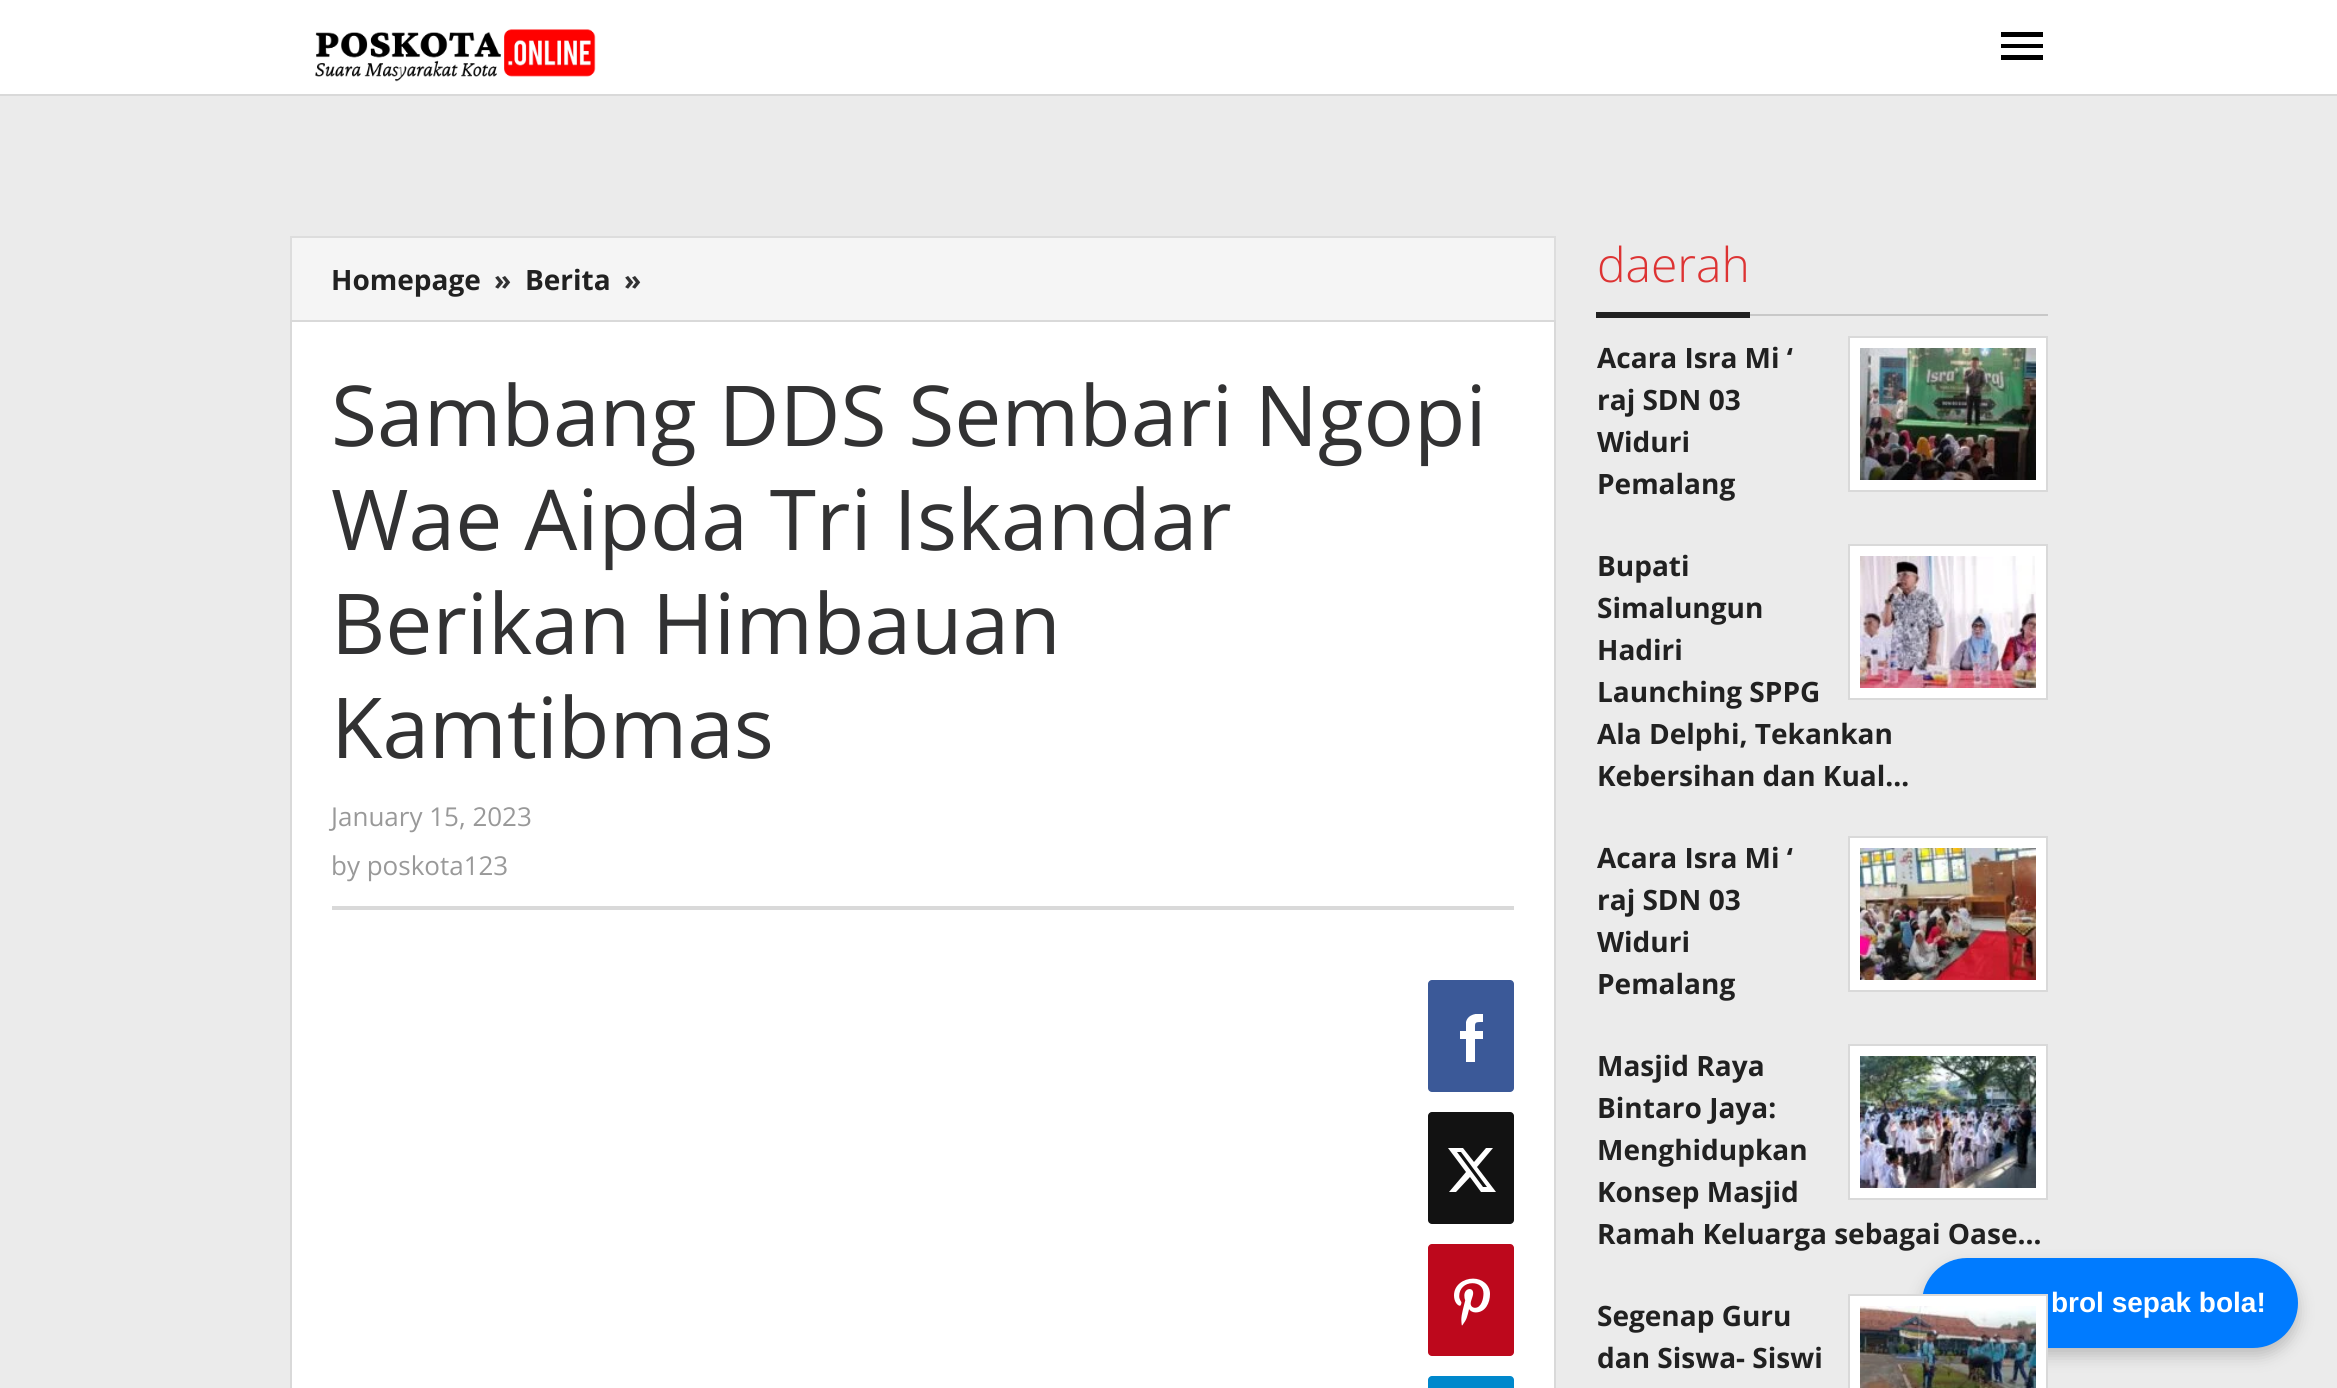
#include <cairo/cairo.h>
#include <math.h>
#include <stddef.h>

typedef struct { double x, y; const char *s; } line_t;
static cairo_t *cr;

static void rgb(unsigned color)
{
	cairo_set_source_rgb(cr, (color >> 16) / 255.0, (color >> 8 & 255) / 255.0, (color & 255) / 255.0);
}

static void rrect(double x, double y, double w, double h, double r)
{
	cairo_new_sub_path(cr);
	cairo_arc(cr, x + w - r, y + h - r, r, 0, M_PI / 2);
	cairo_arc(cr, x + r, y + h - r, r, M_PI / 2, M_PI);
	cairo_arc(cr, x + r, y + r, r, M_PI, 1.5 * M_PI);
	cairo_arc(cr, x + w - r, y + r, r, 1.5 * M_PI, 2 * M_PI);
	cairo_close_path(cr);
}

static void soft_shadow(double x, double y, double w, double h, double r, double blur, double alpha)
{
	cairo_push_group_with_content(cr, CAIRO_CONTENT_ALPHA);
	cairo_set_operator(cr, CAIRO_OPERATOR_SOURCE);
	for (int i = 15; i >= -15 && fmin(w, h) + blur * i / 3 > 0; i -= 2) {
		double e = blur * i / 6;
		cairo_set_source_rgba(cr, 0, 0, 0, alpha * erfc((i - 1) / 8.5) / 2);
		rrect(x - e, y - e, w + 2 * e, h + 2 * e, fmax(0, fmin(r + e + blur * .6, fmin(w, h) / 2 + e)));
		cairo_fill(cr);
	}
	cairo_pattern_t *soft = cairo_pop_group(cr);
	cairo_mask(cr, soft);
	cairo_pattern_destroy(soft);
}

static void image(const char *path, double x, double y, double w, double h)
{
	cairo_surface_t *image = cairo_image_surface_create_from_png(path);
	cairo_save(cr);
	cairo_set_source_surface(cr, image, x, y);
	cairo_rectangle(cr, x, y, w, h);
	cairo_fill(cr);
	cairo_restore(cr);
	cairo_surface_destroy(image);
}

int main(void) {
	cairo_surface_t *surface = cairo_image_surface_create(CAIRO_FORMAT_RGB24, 2337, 1388);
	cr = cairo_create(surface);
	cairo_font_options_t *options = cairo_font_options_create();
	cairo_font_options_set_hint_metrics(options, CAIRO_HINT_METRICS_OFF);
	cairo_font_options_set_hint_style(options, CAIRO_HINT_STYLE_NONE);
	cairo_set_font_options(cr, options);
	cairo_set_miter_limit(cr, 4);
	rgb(0xebebeb);
	cairo_paint(cr);
	rgb(0xffffff);
	cairo_rectangle(cr, 0, 0, 2337, 94);
	cairo_fill(cr);
	rgb(0xd9d9d9);
	cairo_rectangle(cr, 0, 94, 2337, 2);
	cairo_fill(cr);
	image("img/1.png", 315, 29, 281, 53);
	rgb(0x000000);
	cairo_new_path(cr);
	cairo_move_to(cr, 2001, 60);
	cairo_line_to(cr, 2043, 60);
	cairo_line_to(cr, 2043, 55);
	cairo_line_to(cr, 2001, 55);
	cairo_close_path(cr);
	cairo_move_to(cr, 2001, 48);
	cairo_line_to(cr, 2043, 48);
	cairo_line_to(cr, 2043, 44);
	cairo_line_to(cr, 2001, 44);
	cairo_close_path(cr);
	cairo_move_to(cr, 2001, 32);
	cairo_line_to(cr, 2001, 37);
	cairo_line_to(cr, 2043, 37);
	cairo_line_to(cr, 2043, 32);
	cairo_close_path(cr);
	cairo_fill(cr);
	rgb(0xc8c8c8);
	cairo_rectangle(cr, 1750, 314, 298, 2);
	cairo_fill(cr);
	rgb(0x212121);
	cairo_rectangle(cr, 1596, 312, 154, 6);
	cairo_fill(cr);
	rgb(0xffffff);
	cairo_rectangle(cr, 1849, 337, 198, 154);
	cairo_fill_preserve(cr);
	rgb(0xd9d9d9);
	cairo_stroke(cr);
	image("img/2.png", 1860, 348, 176, 132);
	rgb(0xffffff);
	cairo_rectangle(cr, 1849, 545, 198, 154);
	cairo_fill_preserve(cr);
	rgb(0xd9d9d9);
	cairo_stroke(cr);
	image("img/3.png", 1860, 556, 176, 132);
	rgb(0xffffff);
	cairo_rectangle(cr, 1849, 837, 198, 154);
	cairo_fill_preserve(cr);
	rgb(0xd9d9d9);
	cairo_stroke(cr);
	image("img/4.png", 1860, 848, 176, 132);
	rgb(0xffffff);
	cairo_rectangle(cr, 1849, 1045, 198, 154);
	cairo_fill_preserve(cr);
	rgb(0xd9d9d9);
	cairo_stroke(cr);
	image("img/5.png", 1860, 1056, 176, 132);
	rgb(0x000000);
	soft_shadow(1922, 1266, 376, 90, 45, 8, 0.2);
	rgb(0x007bff);
	rrect(1922, 1258, 376, 90, 45);
	cairo_fill(cr);
	rgb(0xffffff);
	cairo_rectangle(cr, 1849, 1295, 198, 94);
	cairo_fill_preserve(cr);
	rgb(0xd9d9d9);
	cairo_stroke(cr);
	image("img/6.png", 1860, 1306, 176, 82);
	rgb(0xf5f5f5);
	cairo_rectangle(cr, 291, 237, 1264, 84);
	cairo_fill_preserve(cr);
	rgb(0xdddddd);
	cairo_stroke(cr);
	rgb(0xffffff);
	cairo_rectangle(cr, 291, 321, 1264, 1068);
	cairo_fill_preserve(cr);
	rgb(0xd9d9d9);
	cairo_stroke(cr);
	cairo_rectangle(cr, 332, 906, 1182, 4);
	cairo_fill(cr);
	rgb(0x3b5998);
	rrect(1428, 980, 86, 112, 4);
	cairo_fill(cr);
	cairo_save(cr);
	cairo_rectangle(cr, 1460, 1014, 24, 48);
	cairo_clip(cr);
	rgb(0xffffff);
	cairo_new_path(cr);
	cairo_move_to(cr, 1466, 1062);
	cairo_line_to(cr, 1466, 1039);
	cairo_line_to(cr, 1460, 1039);
	cairo_line_to(cr, 1460, 1031);
	cairo_line_to(cr, 1466, 1031);
	cairo_line_to(cr, 1466, 1022);
	cairo_curve_to(cr, 1468, 1014, 1477, 1013, 1483, 1014);
	cairo_line_to(cr, 1483, 1022);
	cairo_curve_to(cr, 1474, 1022, 1475, 1022, 1475, 1031);
	cairo_line_to(cr, 1483, 1031);
	cairo_line_to(cr, 1483, 1039);
	cairo_line_to(cr, 1475, 1039);
	cairo_line_to(cr, 1475, 1062);
	cairo_line_to(cr, 1466, 1062);
	cairo_fill(cr);
	cairo_restore(cr);
	rgb(0x121212);
	rrect(1428, 1112, 86, 112, 4);
	cairo_fill(cr);
	rgb(0xffffff);
	cairo_new_path(cr);
	cairo_move_to(cr, 1486, 1148);
	cairo_line_to(cr, 1493, 1148);
	cairo_line_to(cr, 1477, 1167);
	cairo_line_to(cr, 1496, 1192);
	cairo_line_to(cr, 1481, 1192);
	cairo_line_to(cr, 1470, 1177);
	cairo_line_to(cr, 1456, 1192);
	cairo_line_to(cr, 1449, 1192);
	cairo_line_to(cr, 1466, 1172);
	cairo_line_to(cr, 1448, 1148);
	cairo_line_to(cr, 1463, 1148);
	cairo_line_to(cr, 1474, 1162);
	cairo_close_path(cr);
	cairo_move_to(cr, 1483, 1187);
	cairo_line_to(cr, 1487, 1187);
	cairo_line_to(cr, 1461, 1152);
	cairo_line_to(cr, 1457, 1152);
	cairo_close_path(cr);
	cairo_fill(cr);
	rgb(0xbd081c);
	rrect(1428, 1244, 86, 112, 4);
	cairo_fill(cr);
	image("img/7.png", 1454, 1278, 36, 48);
	rgb(0x0088cc);
	rrect(1428, 1376, 86, 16, 4);
	cairo_fill(cr);
	cairo_select_font_face(cr, "Open Sans Light", CAIRO_FONT_SLANT_NORMAL, CAIRO_FONT_WEIGHT_NORMAL);
	cairo_set_font_size(cr, 48);
	rgb(0xdd3333);
	cairo_move_to(cr, 1597, 282);
	cairo_show_text(cr, "daerah");
	cairo_select_font_face(cr, "Open Sans", CAIRO_FONT_SLANT_NORMAL, CAIRO_FONT_WEIGHT_BOLD);
	cairo_set_font_size(cr, 28);
	rgb(0x212121);
	{
		static const line_t items[] = {
			{1597, 368, "Acara Isra Mi ‘"},
			{1597, 410, "raj SDN 03"},
			{1597, 452, "Widuri"},
			{1597, 494, "Pemalang"},
			{1597, 576, "Bupati"},
			{1597, 618, "Simalungun"},
			{1597, 660, "Hadiri"},
			{1597, 702, "Launching SPPG"},
			{1597, 744, "Ala Delphi, Tekankan"},
			{1597, 786, "Kebersihan dan Kual…"},
			{1597, 868, "Acara Isra Mi ‘"},
			{1597, 910, "raj SDN 03"},
			{1597, 952, "Widuri"},
			{1597, 994, "Pemalang"},
			{1597, 1076, "Masjid Raya"},
			{1597, 1118, "Bintaro Jaya:"},
			{1597, 1160, "Menghidupkan"},
			{1597, 1202, "Konsep Masjid"},
			{1597, 1244, "Ramah Keluarga sebagai Oase…"},
			{1597, 1326, "Segenap Guru"},
			{1597, 1368, "dan Siswa- Siswi"},
			{331, 290, "Homepage"},
		};
		for (size_t i = 0; i < sizeof items / sizeof *items; i++) {
			cairo_move_to(cr, items[i].x, items[i].y);
			cairo_show_text(cr, items[i].s);
		}
	}
	rgb(0x323233);
	cairo_move_to(cr, 494, 290);
	cairo_show_text(cr, "»");
	rgb(0x212121);
	cairo_move_to(cr, 525, 290);
	cairo_show_text(cr, "Berita");
	rgb(0x323233);
	cairo_move_to(cr, 624, 290);
	cairo_show_text(cr, "»");
	cairo_select_font_face(cr, "Open Sans", CAIRO_FONT_SLANT_NORMAL, CAIRO_FONT_WEIGHT_NORMAL);
	cairo_set_font_size(cr, 84);
	{
		static const line_t items[] = {
			{331, 446, "Sambang DDS Sembari Ngopi"},
			{331, 550, "Wae Aipda Tri Iskandar"},
			{331, 654, "Berikan Himbauan"},
			{331, 758, "Kamtibmas"},
		};
		for (size_t i = 0; i < sizeof items / sizeof *items; i++) {
			cairo_move_to(cr, items[i].x, items[i].y);
			cairo_show_text(cr, items[i].s);
		}
	}
	cairo_set_font_size(cr, 26);
	rgb(0x999999);
	cairo_move_to(cr, 331, 826);
	cairo_show_text(cr, "January 15, 2023");
	cairo_move_to(cr, 331, 875);
	cairo_show_text(cr, "by poskota123");
	cairo_select_font_face(cr, "Liberation Sans", CAIRO_FONT_SLANT_NORMAL, CAIRO_FONT_WEIGHT_BOLD);
	cairo_set_font_size(cr, 28);
	rgb(0xffffff);
	cairo_move_to(cr, 2051, 1312);
	cairo_show_text(cr, "brol sepak bola!");
	cairo_surface_write_to_png(surface, "page.png");
	cairo_font_options_destroy(options);
	cairo_destroy(cr);
	cairo_surface_destroy(surface);
	return 0;
}
